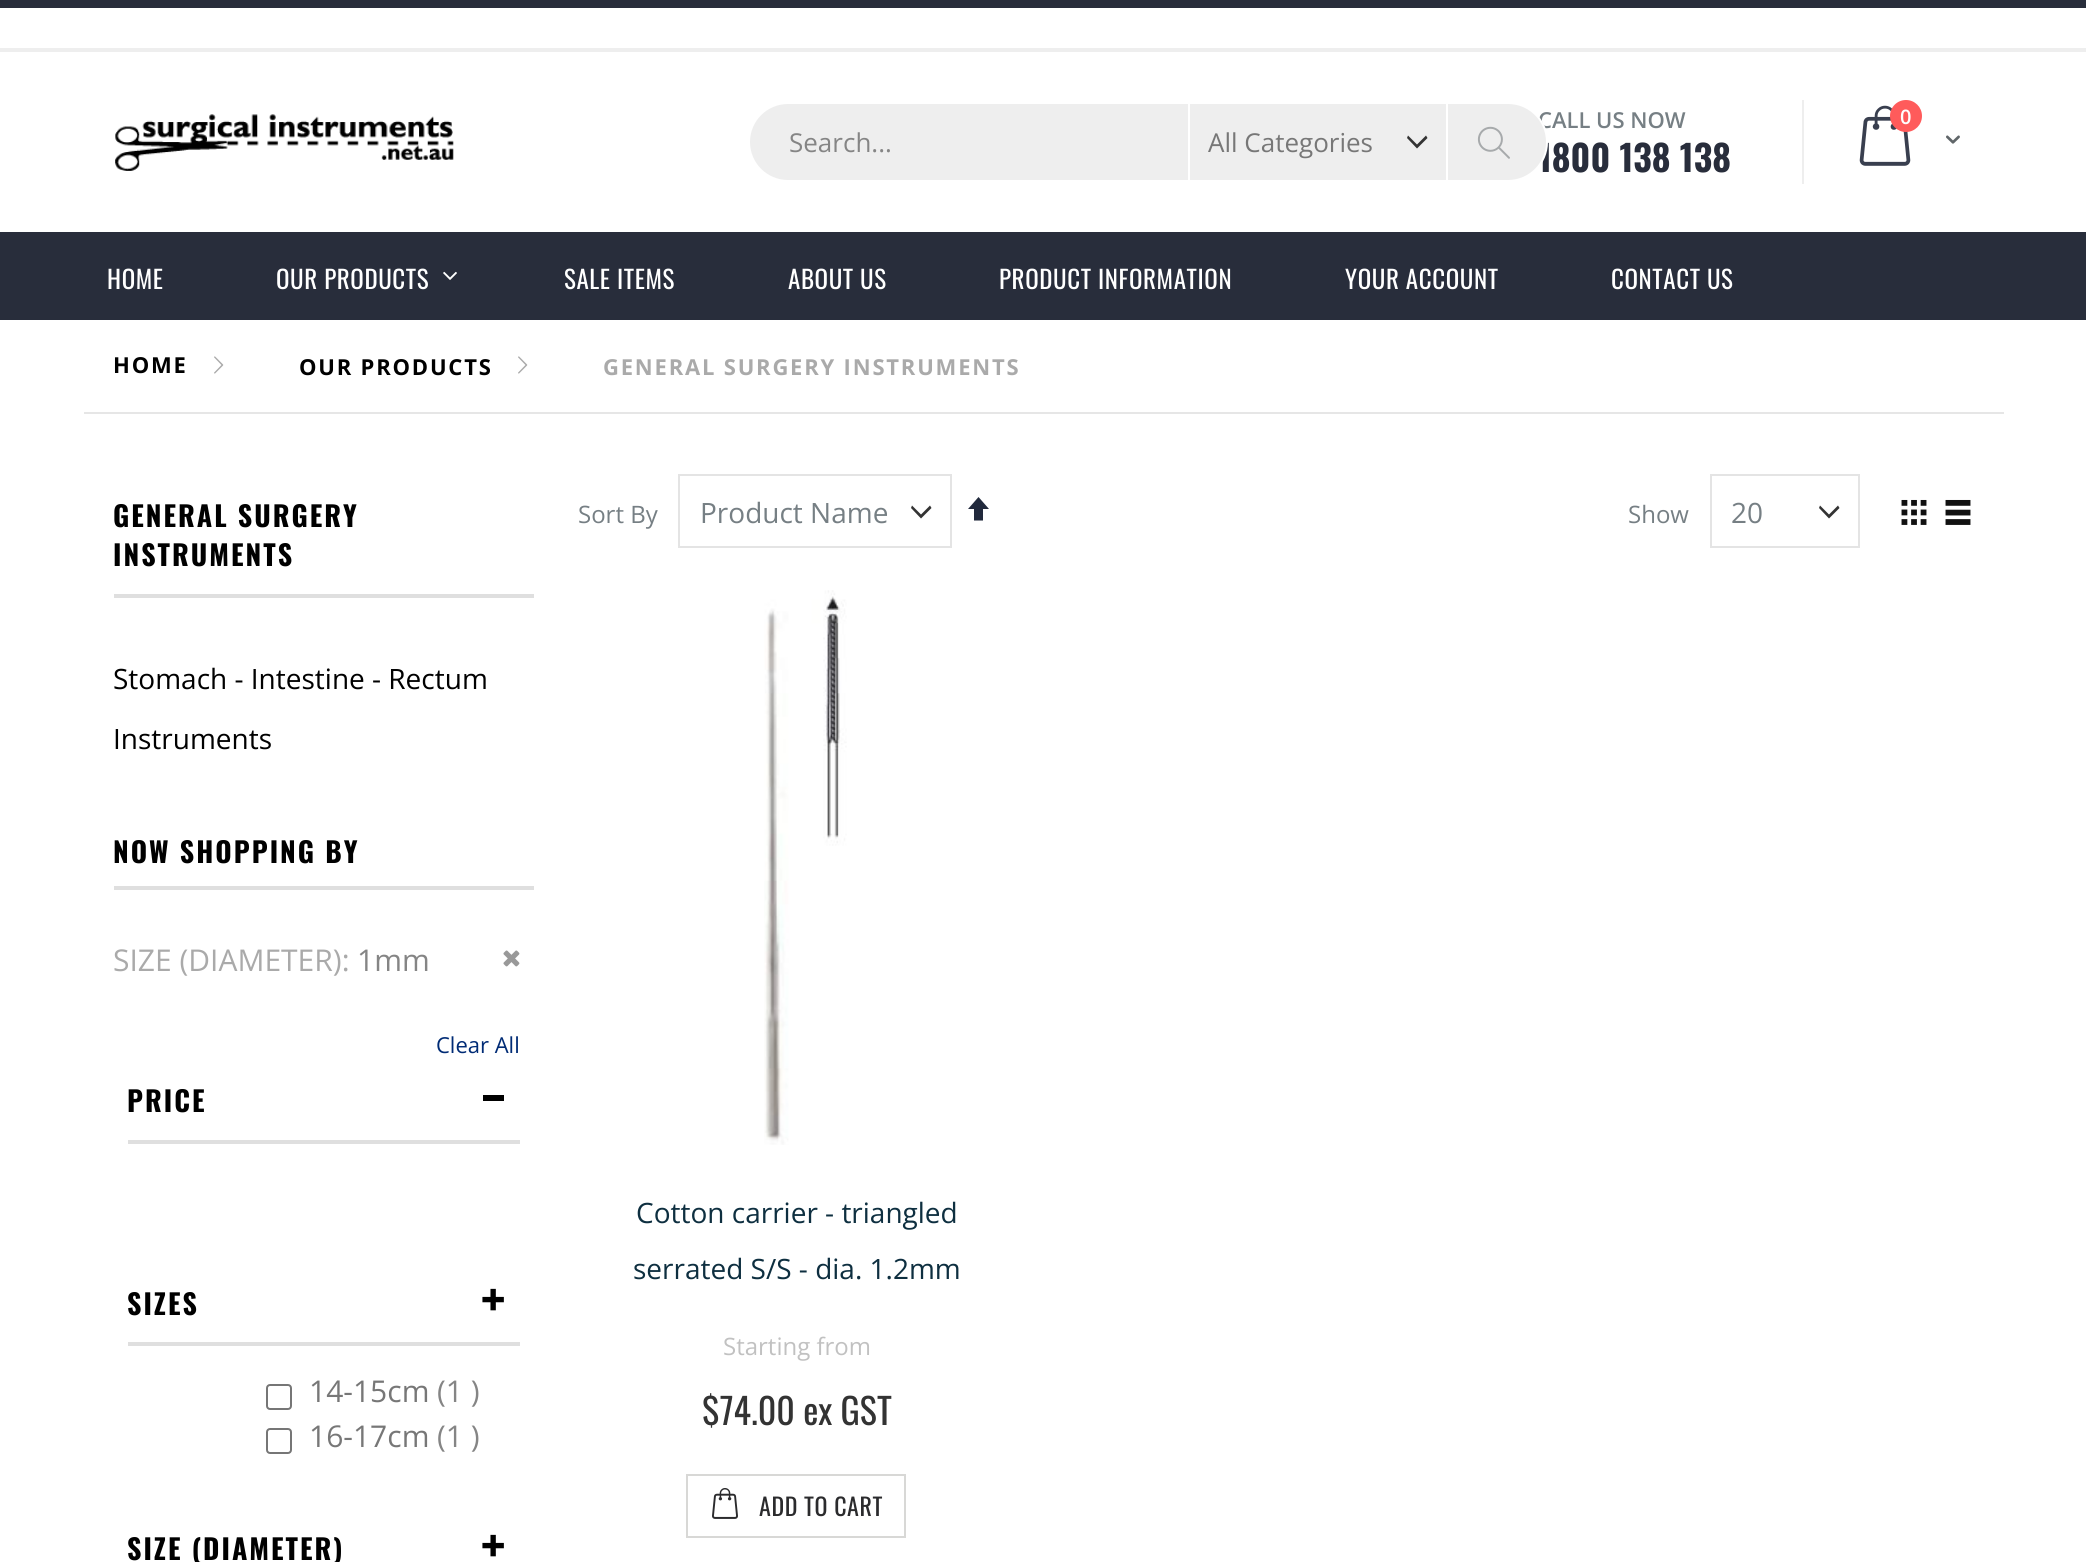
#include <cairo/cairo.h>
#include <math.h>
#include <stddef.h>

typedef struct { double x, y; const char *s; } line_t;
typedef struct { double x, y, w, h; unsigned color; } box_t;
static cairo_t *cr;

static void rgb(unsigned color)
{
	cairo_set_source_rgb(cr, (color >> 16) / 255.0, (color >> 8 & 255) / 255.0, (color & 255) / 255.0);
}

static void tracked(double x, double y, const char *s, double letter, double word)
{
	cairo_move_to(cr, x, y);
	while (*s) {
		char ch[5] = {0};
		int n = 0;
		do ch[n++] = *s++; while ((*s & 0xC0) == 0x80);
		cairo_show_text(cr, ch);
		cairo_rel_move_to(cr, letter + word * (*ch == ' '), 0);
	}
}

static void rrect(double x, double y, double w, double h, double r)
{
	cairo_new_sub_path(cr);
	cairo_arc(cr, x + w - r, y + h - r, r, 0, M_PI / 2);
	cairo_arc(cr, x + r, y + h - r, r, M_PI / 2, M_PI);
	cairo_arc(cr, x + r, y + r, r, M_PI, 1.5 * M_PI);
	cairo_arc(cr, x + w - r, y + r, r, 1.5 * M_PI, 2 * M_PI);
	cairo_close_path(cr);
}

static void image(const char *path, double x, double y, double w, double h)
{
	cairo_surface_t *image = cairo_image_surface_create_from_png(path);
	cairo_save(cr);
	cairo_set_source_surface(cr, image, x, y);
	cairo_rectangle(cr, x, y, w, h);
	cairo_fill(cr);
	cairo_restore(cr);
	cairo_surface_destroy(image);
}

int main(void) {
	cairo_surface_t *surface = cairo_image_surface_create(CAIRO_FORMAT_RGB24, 2086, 1562);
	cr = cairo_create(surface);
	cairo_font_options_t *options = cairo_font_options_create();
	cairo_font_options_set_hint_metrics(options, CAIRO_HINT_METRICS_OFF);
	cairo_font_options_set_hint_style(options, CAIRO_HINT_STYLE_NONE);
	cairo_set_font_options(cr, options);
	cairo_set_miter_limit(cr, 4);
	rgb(0xffffff);
	cairo_paint(cr);
	rgb(0x282d3b);
	cairo_rectangle(cr, 0, 0, 2086, 8);
	cairo_fill(cr);
	rgb(0xeeeeee);
	cairo_rectangle(cr, 0, 48, 2086, 4);
	cairo_fill(cr);
	image("img/1.png", 115, 114, 339, 57);
	cairo_rectangle(cr, 1802, 100, 2, 84);
	cairo_fill(cr);
	image("img/3.png", 1859, 105, 52, 61);
	rgb(0xff5b5b);
	cairo_arc(cr, 1906, 116, 16, 0, 2 * M_PI);
	cairo_fill(cr);
	image("img/4.png", 1946, 135, 14, 9);
	rgb(0x282d3b);
	cairo_rectangle(cr, 0, 232, 2086, 88);
	cairo_fill(cr);
	image("img/5.png", 443, 271, 14, 9);
	rgb(0xe6e6e6);
	cairo_rectangle(cr, 84, 412, 1920, 2);
	cairo_fill(cr);
	image("img/6.png", 214, 356, 10, 18);
	image("img/6.png", 518, 356, 10, 18);
	rgb(0xdfdfdf);
	cairo_rectangle(cr, 114, 594, 420, 4);
	cairo_fill(cr);
	cairo_rectangle(cr, 114, 886, 420, 4);
	cairo_fill(cr);
	image("img/7.png", 503, 950, 17, 17);
	{
		static const box_t items[] = {
			{128, 1140, 392, 4, 0xdfdfdf},
			{483, 1095, 21, 6, 0x000000},
			{128, 1342, 392, 4, 0xdfdfdf},
		};
		for (size_t i = 0; i < sizeof items / sizeof *items; i++) {
			rgb(items[i].color);
			cairo_rectangle(cr, items[i].x, items[i].y, items[i].w, items[i].h);
			cairo_fill(cr);
		}
	}
	image("img/8.png", 482, 1288, 22, 23);
	rrect(267, 1385, 24, 24, 3);
	rgb(0x767676);
	cairo_stroke(cr);
	rrect(267, 1429, 24, 24, 3);
	cairo_stroke(cr);
	image("img/8.png", 482, 1534, 22, 23);
	rgb(0x333333);
	cairo_set_fill_rule(cr, CAIRO_FILL_RULE_EVEN_ODD);
	cairo_new_path(cr);
	cairo_move_to(cr, 921.5, 518);
	cairo_line_to(cr, 931.5, 508);
	cairo_line_to(cr, 930, 505.5);
	cairo_line_to(cr, 921, 514.5);
	cairo_line_to(cr, 912, 505.5);
	cairo_line_to(cr, 911, 508);
	cairo_line_to(cr, 921, 518.5);
	cairo_close_path(cr);
	cairo_fill(cr);
	cairo_rectangle(cr, 679, 475, 272, 72);
	rgb(0xe4e4e4);
	cairo_stroke(cr);
	rgb(0x21293c);
	cairo_set_fill_rule(cr, CAIRO_FILL_RULE_WINDING);
	cairo_new_path(cr);
	cairo_move_to(cr, 989, 509);
	cairo_line_to(cr, 983, 509);
	cairo_line_to(cr, 983, 520.5);
	cairo_line_to(cr, 974, 520.5);
	cairo_line_to(cr, 974, 509);
	cairo_line_to(cr, 968, 509);
	cairo_line_to(cr, 978.5, 497);
	cairo_close_path(cr);
	cairo_fill(cr);
	rgb(0x333333);
	cairo_set_fill_rule(cr, CAIRO_FILL_RULE_EVEN_ODD);
	cairo_new_path(cr);
	cairo_move_to(cr, 1829.5, 518);
	cairo_line_to(cr, 1839.5, 508);
	cairo_line_to(cr, 1838, 505.5);
	cairo_line_to(cr, 1829, 514.5);
	cairo_line_to(cr, 1820, 505.5);
	cairo_line_to(cr, 1819, 508);
	cairo_line_to(cr, 1829, 518.5);
	cairo_close_path(cr);
	cairo_fill(cr);
	cairo_rectangle(cr, 1711, 475, 148, 72);
	rgb(0xe4e4e4);
	cairo_stroke(cr);
	image("img/9.png", 1901, 499, 26, 26);
	image("img/10.png", 1945, 499, 26, 26);
	image("img/11.png", 764, 590, 83, 555);
	cairo_rectangle(cr, 687, 1475, 218, 62);
	rgb(0xd8d8d6);
	cairo_stroke(cr);
	image("img/12.png", 712, 1488, 26, 31);
	cairo_select_font_face(cr, "Open Sans SemiBold", CAIRO_FONT_SLANT_NORMAL, CAIRO_FONT_WEIGHT_NORMAL);
	cairo_set_font_size(cr, 22);
	rgb(0x767f84);
	cairo_move_to(cr, 1538, 128);
	cairo_show_text(cr, "CALL US NOW");
	cairo_select_font_face(cr, "Oswald", CAIRO_FONT_SLANT_NORMAL, CAIRO_FONT_WEIGHT_BOLD);
	cairo_set_font_size(cr, 36);
	rgb(0x282d3b);
	cairo_move_to(cr, 1538, 172);
	cairo_show_text(cr, "1800 138 138");
	rgb(0xffffff);
	rrect(748, 102, 800, 80, 40);
	cairo_fill(cr);
	rgb(0xeeeeee);
	rrect(750, 104, 796, 76, 38);
	cairo_fill(cr);
	image("img/2.png", 1477, 126, 33, 33);
	cairo_select_font_face(cr, "Open Sans", CAIRO_FONT_SLANT_NORMAL, CAIRO_FONT_WEIGHT_NORMAL);
	cairo_set_font_size(cr, 26);
	rgb(0x777777);
	cairo_move_to(cr, 1208, 152);
	cairo_show_text(cr, "All Categories");
	rgb(0xffffff);
	cairo_set_fill_rule(cr, CAIRO_FILL_RULE_WINDING);
	cairo_new_path(cr);
	cairo_move_to(cr, 1188, 182);
	cairo_line_to(cr, 1188, 102);
	cairo_line_to(cr, 1190, 104);
	cairo_line_to(cr, 1190, 180);
	cairo_close_path(cr);
	cairo_fill(cr);
	cairo_new_path(cr);
	cairo_move_to(cr, 1448, 102);
	cairo_line_to(cr, 1448, 182);
	cairo_line_to(cr, 1446, 180);
	cairo_line_to(cr, 1446, 104);
	cairo_close_path(cr);
	cairo_fill(cr);
	rgb(0x333333);
	cairo_set_fill_rule(cr, CAIRO_FILL_RULE_EVEN_ODD);
	cairo_new_path(cr);
	cairo_move_to(cr, 1417.5, 148);
	cairo_line_to(cr, 1427.5, 138);
	cairo_line_to(cr, 1426, 135.5);
	cairo_line_to(cr, 1417, 144.5);
	cairo_line_to(cr, 1408, 135.5);
	cairo_line_to(cr, 1407, 138);
	cairo_line_to(cr, 1417, 148.5);
	cairo_close_path(cr);
	cairo_fill(cr);
	rgb(0x858585);
	cairo_move_to(cr, 789, 152);
	cairo_show_text(cr, "Search...");
	cairo_select_font_face(cr, "Open Sans SemiBold", CAIRO_FONT_SLANT_NORMAL, CAIRO_FONT_WEIGHT_NORMAL);
	cairo_set_font_size(cr, 20);
	rgb(0xffffff);
	cairo_move_to(cr, 1900, 124);
	cairo_show_text(cr, "0");
	cairo_select_font_face(cr, "Oswald", CAIRO_FONT_SLANT_NORMAL, CAIRO_FONT_WEIGHT_NORMAL);
	cairo_set_font_size(cr, 25);
	{
		static const line_t items[] = {
			{107, 289, "HOME"},
			{276, 289, "OUR PRODUCTS"},
			{564, 289, "SALE ITEMS"},
			{788, 289, "ABOUT US"},
			{999, 289, "PRODUCT INFORMATION"},
			{1345, 289, "YOUR ACCOUNT"},
			{1611, 289, "CONTACT US"},
		};
		for (size_t i = 0; i < sizeof items / sizeof *items; i++) {
			tracked(items[i].x, items[i].y, items[i].s, 0.6, 0);
		}
	}
	cairo_select_font_face(cr, "Open Sans", CAIRO_FONT_SLANT_NORMAL, CAIRO_FONT_WEIGHT_BOLD);
	cairo_set_font_size(cr, 22);
	rgb(0x000000);
	tracked(113, 373, "HOME", 1.8, 0);
	tracked(299, 375, "OUR PRODUCTS", 1.8, 0);
	rgb(0xaaaaaa);
	tracked(603, 375, "GENERAL SURGERY INSTRUMENTS", 1.8, 0);
	cairo_select_font_face(cr, "Oswald", CAIRO_FONT_SLANT_NORMAL, CAIRO_FONT_WEIGHT_BOLD);
	cairo_set_font_size(cr, 28);
	rgb(0x000000);
	tracked(113, 527, "GENERAL SURGERY", 2, 0);
	tracked(113, 566, "INSTRUMENTS", 2, 0);
	cairo_select_font_face(cr, "Open Sans", CAIRO_FONT_SLANT_NORMAL, CAIRO_FONT_WEIGHT_NORMAL);
	cairo_move_to(cr, 113, 689);
	cairo_show_text(cr, "Stomach - Intestine - Rectum");
	cairo_move_to(cr, 113, 749);
	cairo_show_text(cr, "Instruments");
	cairo_select_font_face(cr, "Oswald", CAIRO_FONT_SLANT_NORMAL, CAIRO_FONT_WEIGHT_BOLD);
	tracked(113, 863, "NOW SHOPPING BY", 2, 0);
	cairo_select_font_face(cr, "Open Sans", CAIRO_FONT_SLANT_NORMAL, CAIRO_FONT_WEIGHT_NORMAL);
	cairo_set_font_size(cr, 30);
	rgb(0xaaaaaa);
	cairo_move_to(cr, 113, 971);
	cairo_show_text(cr, "SIZE (DIAMETER):");
	rgb(0x858585);
	cairo_move_to(cr, 357, 971);
	cairo_show_text(cr, "1mm");
	cairo_set_font_size(cr, 22);
	rgb(0x002b75);
	cairo_move_to(cr, 436, 1053);
	cairo_show_text(cr, "Clear All");
	cairo_select_font_face(cr, "Oswald", CAIRO_FONT_SLANT_NORMAL, CAIRO_FONT_WEIGHT_BOLD);
	cairo_set_font_size(cr, 28);
	rgb(0x000000);
	tracked(127, 1112, "PRICE", 2, 0);
	tracked(127, 1315, "SIZES", 2, 0);
	cairo_select_font_face(cr, "Open Sans", CAIRO_FONT_SLANT_NORMAL, CAIRO_FONT_WEIGHT_NORMAL);
	cairo_set_font_size(cr, 30);
	rgb(0x777777);
	cairo_move_to(cr, 309, 1402);
	cairo_show_text(cr, "14-15cm");
	rgb(0x858585);
	cairo_move_to(cr, 437, 1402);
	cairo_show_text(cr, "(1 )");
	rgb(0x777777);
	cairo_move_to(cr, 309, 1447);
	cairo_show_text(cr, "16-17cm");
	rgb(0x858585);
	cairo_move_to(cr, 437, 1447);
	cairo_show_text(cr, "(1 )");
	cairo_select_font_face(cr, "Oswald", CAIRO_FONT_SLANT_NORMAL, CAIRO_FONT_WEIGHT_BOLD);
	cairo_set_font_size(cr, 28);
	rgb(0x000000);
	tracked(127, 1560, "SIZE (DIAMETER)", 2, 0);
	cairo_select_font_face(cr, "Open Sans", CAIRO_FONT_SLANT_NORMAL, CAIRO_FONT_WEIGHT_NORMAL);
	cairo_set_font_size(cr, 24);
	rgb(0x767f84);
	cairo_move_to(cr, 578, 523);
	cairo_show_text(cr, "Sort By");
	cairo_set_font_size(cr, 28);
	cairo_move_to(cr, 700, 523);
	cairo_show_text(cr, "Product Name");
	cairo_set_font_size(cr, 24);
	cairo_move_to(cr, 1628, 523);
	cairo_show_text(cr, "Show");
	cairo_set_font_size(cr, 28);
	cairo_move_to(cr, 1731, 523);
	cairo_show_text(cr, "20");
	rgb(0x0e2f40);
	cairo_move_to(cr, 636, 1223);
	cairo_show_text(cr, "Cotton carrier - triangled");
	cairo_move_to(cr, 633, 1279);
	cairo_show_text(cr, "serrated S/S - dia. 1.2mm");
	cairo_set_font_size(cr, 24);
	rgb(0xc1c1c1);
	cairo_move_to(cr, 723, 1355);
	cairo_show_text(cr, "Starting from");
	cairo_select_font_face(cr, "Oswald", CAIRO_FONT_SLANT_NORMAL, CAIRO_FONT_WEIGHT_NORMAL);
	cairo_set_font_size(cr, 36);
	rgb(0x333333);
	cairo_move_to(cr, 702, 1425);
	cairo_show_text(cr, "$74.00 ex GST");
	cairo_set_font_size(cr, 24);
	rgb(0x2b2b2d);
	tracked(759, 1516, "ADD TO CART", 0.6, 0);
	cairo_surface_write_to_png(surface, "page.png");
	cairo_font_options_destroy(options);
	cairo_destroy(cr);
	cairo_surface_destroy(surface);
	return 0;
}
